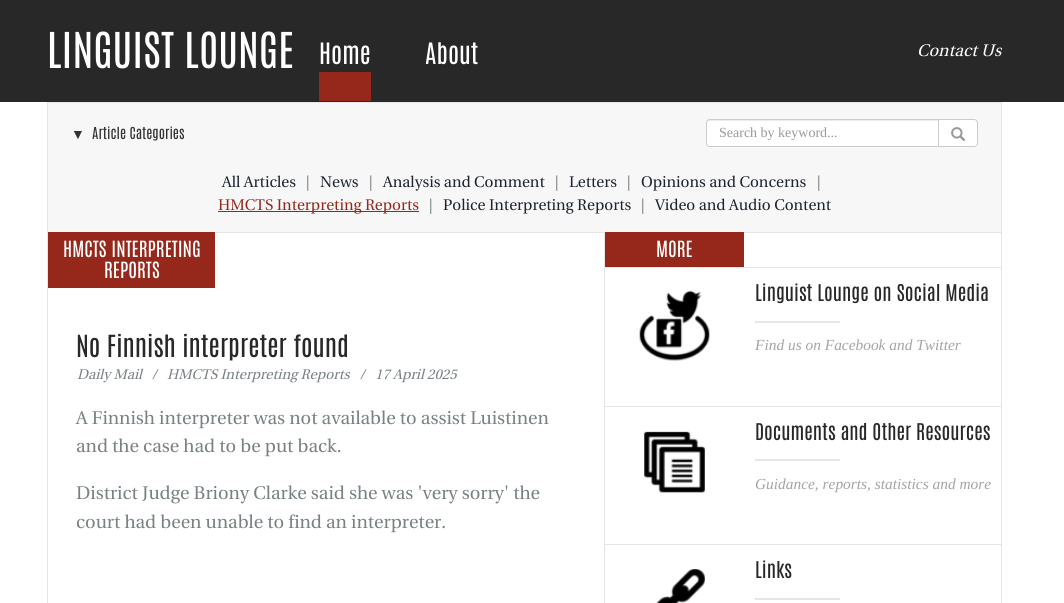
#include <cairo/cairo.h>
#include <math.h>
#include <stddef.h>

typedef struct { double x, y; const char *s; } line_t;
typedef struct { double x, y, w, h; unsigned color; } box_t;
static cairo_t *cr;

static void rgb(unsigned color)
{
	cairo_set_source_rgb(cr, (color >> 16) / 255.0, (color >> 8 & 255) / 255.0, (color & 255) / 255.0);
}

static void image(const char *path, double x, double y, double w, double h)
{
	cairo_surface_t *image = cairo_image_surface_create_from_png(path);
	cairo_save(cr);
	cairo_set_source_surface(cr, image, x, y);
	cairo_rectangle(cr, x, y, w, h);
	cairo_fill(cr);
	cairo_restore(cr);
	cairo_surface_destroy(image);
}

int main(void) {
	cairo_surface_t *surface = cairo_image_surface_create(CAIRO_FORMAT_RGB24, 1064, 603);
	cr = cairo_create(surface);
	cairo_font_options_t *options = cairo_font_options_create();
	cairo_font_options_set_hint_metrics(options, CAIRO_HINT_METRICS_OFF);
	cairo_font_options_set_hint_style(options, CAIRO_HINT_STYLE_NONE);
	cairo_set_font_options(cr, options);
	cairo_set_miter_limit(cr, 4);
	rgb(0xffffff);
	cairo_paint(cr);
	{
		static const box_t items[] = {
			{0, 0, 1064, 102, 0x282828},
			{319, 72, 52, 29, 0x96281b},
			{48, 103, 953, 129, 0xf7f7f7},
			{47, 102, 955, 1, 0xe6e6e6},
			{1001, 102, 1, 130, 0xe6e6e6},
			{47, 102, 1, 130, 0xe6e6e6},
		};
		for (size_t i = 0; i < sizeof items / sizeof *items; i++) {
			rgb(items[i].color);
			cairo_rectangle(cr, items[i].x, items[i].y, items[i].w, items[i].h);
			cairo_fill(cr);
		}
	}
	rgb(0xffffff);
	cairo_new_path(cr);
	cairo_move_to(cr, 938.5, 119.5);
	cairo_line_to(cr, 974, 119.5);
	cairo_curve_to(cr, 976, 119.5, 977.5, 121, 977.5, 123);
	cairo_line_to(cr, 977.5, 143);
	cairo_curve_to(cr, 977.5, 145, 976, 146.5, 974, 146.5);
	cairo_line_to(cr, 938.5, 146.5);
	cairo_close_path(cr);
	cairo_fill_preserve(cr);
	rgb(0xcccccc);
	cairo_set_line_width(cr, 1);
	cairo_stroke(cr);
	rgb(0xffffff);
	cairo_new_path(cr);
	cairo_move_to(cr, 710, 119);
	cairo_line_to(cr, 939, 119);
	cairo_line_to(cr, 939, 147);
	cairo_line_to(cr, 710, 147);
	cairo_curve_to(cr, 708, 147, 706, 145, 706, 143);
	cairo_line_to(cr, 706, 123);
	cairo_curve_to(cr, 706, 121, 708, 119, 710, 119);
	cairo_close_path(cr);
	cairo_fill(cr);
	rgb(0xececec);
	cairo_new_path(cr);
	cairo_move_to(cr, 710, 121);
	cairo_line_to(cr, 938, 121);
	cairo_line_to(cr, 938, 120);
	cairo_line_to(cr, 710, 120);
	cairo_curve_to(cr, 708, 120, 707, 122, 707, 124);
	cairo_curve_to(cr, 707, 122, 708, 121, 710, 121);
	cairo_close_path(cr);
	cairo_fill(cr);
	cairo_new_path(cr);
	cairo_move_to(cr, 710, 119.5);
	cairo_line_to(cr, 938.5, 119.5);
	cairo_line_to(cr, 938.5, 146.5);
	cairo_line_to(cr, 710, 146.5);
	cairo_curve_to(cr, 708, 146.5, 706.5, 145, 706.5, 143);
	cairo_line_to(cr, 706.5, 123);
	cairo_curve_to(cr, 706.5, 121, 708, 119.5, 710, 119.5);
	cairo_close_path(cr);
	rgb(0xcccccc);
	cairo_stroke(cr);
	image("img/1.png", 951, 127, 14, 14);
	rgb(0x96281b);
	cairo_rectangle(cr, 218, 211, 201, 1);
	cairo_fill(cr);
	cairo_rectangle(cr, 47.5, 232.5, 954, 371);
	rgb(0xe6e6e6);
	cairo_stroke(cr);
	{
		static const box_t items[] = {
			{48, 232, 167, 56, 0x96281b},
			{604, 233, 1, 370, 0xe6e6e6},
			{605, 232, 139, 35, 0x96281b},
			{605, 267, 396, 1, 0xe6e6e6},
		};
		for (size_t i = 0; i < sizeof items / sizeof *items; i++) {
			rgb(items[i].color);
			cairo_rectangle(cr, items[i].x, items[i].y, items[i].w, items[i].h);
			cairo_fill(cr);
		}
	}
	image("img/2.png", 639, 290, 71, 71);
	cairo_rectangle(cr, 755, 321, 85, 2);
	cairo_fill(cr);
	cairo_rectangle(cr, 605, 406, 396, 1);
	cairo_fill(cr);
	image("img/3.png", 644, 431, 61, 62);
	cairo_rectangle(cr, 755, 459, 85, 2);
	cairo_fill(cr);
	cairo_rectangle(cr, 605, 544, 396, 1);
	cairo_fill(cr);
	image("img/4.png", 656, 569, 49, 34);
	cairo_rectangle(cr, 755, 598, 85, 2);
	cairo_fill(cr);
	cairo_select_font_face(cr, "Antonio", CAIRO_FONT_SLANT_NORMAL, CAIRO_FONT_WEIGHT_NORMAL);
	cairo_set_font_size(cr, 42);
	rgb(0xffffff);
	cairo_move_to(cr, 47, 68);
	cairo_show_text(cr, "LINGUIST LOUNGE");
	cairo_set_font_size(cr, 25);
	cairo_move_to(cr, 319, 64);
	cairo_show_text(cr, "Home");
	cairo_move_to(cr, 425, 64);
	cairo_show_text(cr, "About");
	cairo_select_font_face(cr, "Utopia", CAIRO_FONT_SLANT_ITALIC, CAIRO_FONT_WEIGHT_NORMAL);
	cairo_set_font_size(cr, 16.75);
	cairo_move_to(cr, 917, 56);
	cairo_show_text(cr, "Contact Us");
	cairo_select_font_face(cr, "Liberation Serif", CAIRO_FONT_SLANT_NORMAL, CAIRO_FONT_WEIGHT_NORMAL);
	cairo_set_font_size(cr, 14);
	rgb(0x333333);
	cairo_move_to(cr, 71, 139);
	cairo_show_text(cr, "▼");
	cairo_select_font_face(cr, "Antonio", CAIRO_FONT_SLANT_NORMAL, CAIRO_FONT_WEIGHT_NORMAL);
	cairo_move_to(cr, 92, 139);
	cairo_show_text(cr, "Article Categories");
	cairo_select_font_face(cr, "Liberation Serif", CAIRO_FONT_SLANT_NORMAL, CAIRO_FONT_WEIGHT_NORMAL);
	rgb(0x999999);
	cairo_move_to(cr, 719, 137);
	cairo_show_text(cr, "Search by keyword...");
	cairo_select_font_face(cr, "Utopia", CAIRO_FONT_SLANT_NORMAL, CAIRO_FONT_WEIGHT_NORMAL);
	cairo_set_font_size(cr, 15.4);
	rgb(0x1b242f);
	cairo_move_to(cr, 222, 187);
	cairo_show_text(cr, "All Articles");
	rgb(0x798184);
	cairo_move_to(cr, 306, 187);
	cairo_show_text(cr, "|");
	rgb(0x1b242f);
	cairo_move_to(cr, 320, 187);
	cairo_show_text(cr, "News");
	rgb(0x798184);
	cairo_move_to(cr, 369, 187);
	cairo_show_text(cr, "|");
	rgb(0x1b242f);
	cairo_move_to(cr, 383, 187);
	cairo_show_text(cr, "Analysis and Comment");
	rgb(0x798184);
	cairo_move_to(cr, 555, 187);
	cairo_show_text(cr, "|");
	rgb(0x1b242f);
	cairo_move_to(cr, 569, 187);
	cairo_show_text(cr, "Letters");
	rgb(0x798184);
	cairo_move_to(cr, 627, 187);
	cairo_show_text(cr, "|");
	rgb(0x1b242f);
	cairo_move_to(cr, 641, 187);
	cairo_show_text(cr, "Opinions and Concerns");
	rgb(0x798184);
	cairo_move_to(cr, 817, 187);
	cairo_show_text(cr, "|");
	rgb(0x96281b);
	cairo_move_to(cr, 218, 210);
	cairo_show_text(cr, "HMCTS Interpreting Reports");
	rgb(0x798184);
	cairo_move_to(cr, 429, 210);
	cairo_show_text(cr, "|");
	rgb(0x1b242f);
	cairo_move_to(cr, 443, 210);
	cairo_show_text(cr, "Police Interpreting Reports");
	rgb(0x798184);
	cairo_move_to(cr, 641, 210);
	cairo_show_text(cr, "|");
	rgb(0x1b242f);
	cairo_move_to(cr, 655, 210);
	cairo_show_text(cr, "Video and Audio Content");
	cairo_select_font_face(cr, "Antonio", CAIRO_FONT_SLANT_NORMAL, CAIRO_FONT_WEIGHT_NORMAL);
	cairo_set_font_size(cr, 19);
	rgb(0xffffff);
	cairo_move_to(cr, 63, 257);
	cairo_show_text(cr, "HMCTS INTERPRETING");
	cairo_move_to(cr, 104, 278);
	cairo_show_text(cr, "REPORTS");
	cairo_set_font_size(cr, 25.9);
	rgb(0x282828);
	cairo_move_to(cr, 76, 357);
	cairo_show_text(cr, "No Finnish interpreter found");
	cairo_select_font_face(cr, "Utopia", CAIRO_FONT_SLANT_ITALIC, CAIRO_FONT_WEIGHT_NORMAL);
	cairo_set_font_size(cr, 14);
	rgb(0x798184);
	{
		static const line_t items[] = {
			{77, 379, "Daily Mail"},
			{151, 379, "/"},
			{167, 379, "HMCTS Interpreting Reports"},
			{359, 379, "/"},
			{375, 379, "17 April 2025"},
		};
		for (size_t i = 0; i < sizeof items / sizeof *items; i++) {
			cairo_move_to(cr, items[i].x, items[i].y);
			cairo_show_text(cr, items[i].s);
		}
	}
	cairo_select_font_face(cr, "Utopia", CAIRO_FONT_SLANT_NORMAL, CAIRO_FONT_WEIGHT_NORMAL);
	cairo_set_font_size(cr, 18.35);
	{
		static const line_t items[] = {
			{76, 424, "A Finnish interpreter was not available to assist Luistinen"},
			{76, 452, "and the case had to be put back."},
			{76, 499, "District Judge Briony Clarke said she was 'very sorry' the"},
			{76, 528, "court had been unable to find an interpreter."},
		};
		for (size_t i = 0; i < sizeof items / sizeof *items; i++) {
			cairo_move_to(cr, items[i].x, items[i].y);
			cairo_show_text(cr, items[i].s);
		}
	}
	cairo_select_font_face(cr, "Antonio", CAIRO_FONT_SLANT_NORMAL, CAIRO_FONT_WEIGHT_NORMAL);
	cairo_set_font_size(cr, 19);
	rgb(0xffffff);
	cairo_move_to(cr, 656, 257);
	cairo_show_text(cr, "MORE");
	cairo_set_font_size(cr, 19.6);
	rgb(0x282828);
	cairo_move_to(cr, 755, 301);
	cairo_show_text(cr, "Linguist Lounge on Social Media");
	cairo_select_font_face(cr, "Liberation Serif", CAIRO_FONT_SLANT_ITALIC, CAIRO_FONT_WEIGHT_NORMAL);
	cairo_set_font_size(cr, 15.4);
	rgb(0xa4a4a4);
	cairo_move_to(cr, 755, 350);
	cairo_show_text(cr, "Find us on Facebook and Twitter");
	cairo_select_font_face(cr, "Antonio", CAIRO_FONT_SLANT_NORMAL, CAIRO_FONT_WEIGHT_NORMAL);
	cairo_set_font_size(cr, 19.6);
	rgb(0x282828);
	cairo_move_to(cr, 755, 440);
	cairo_show_text(cr, "Documents and Other Resources");
	cairo_select_font_face(cr, "Liberation Serif", CAIRO_FONT_SLANT_ITALIC, CAIRO_FONT_WEIGHT_NORMAL);
	cairo_set_font_size(cr, 15.4);
	rgb(0xa4a4a4);
	cairo_move_to(cr, 755, 489);
	cairo_show_text(cr, "Guidance, reports, statistics and more");
	cairo_select_font_face(cr, "Antonio", CAIRO_FONT_SLANT_NORMAL, CAIRO_FONT_WEIGHT_NORMAL);
	cairo_set_font_size(cr, 19.6);
	rgb(0x282828);
	cairo_move_to(cr, 755, 578);
	cairo_show_text(cr, "Links");
	cairo_surface_write_to_png(surface, "page.png");
	cairo_font_options_destroy(options);
	cairo_destroy(cr);
	cairo_surface_destroy(surface);
	return 0;
}
